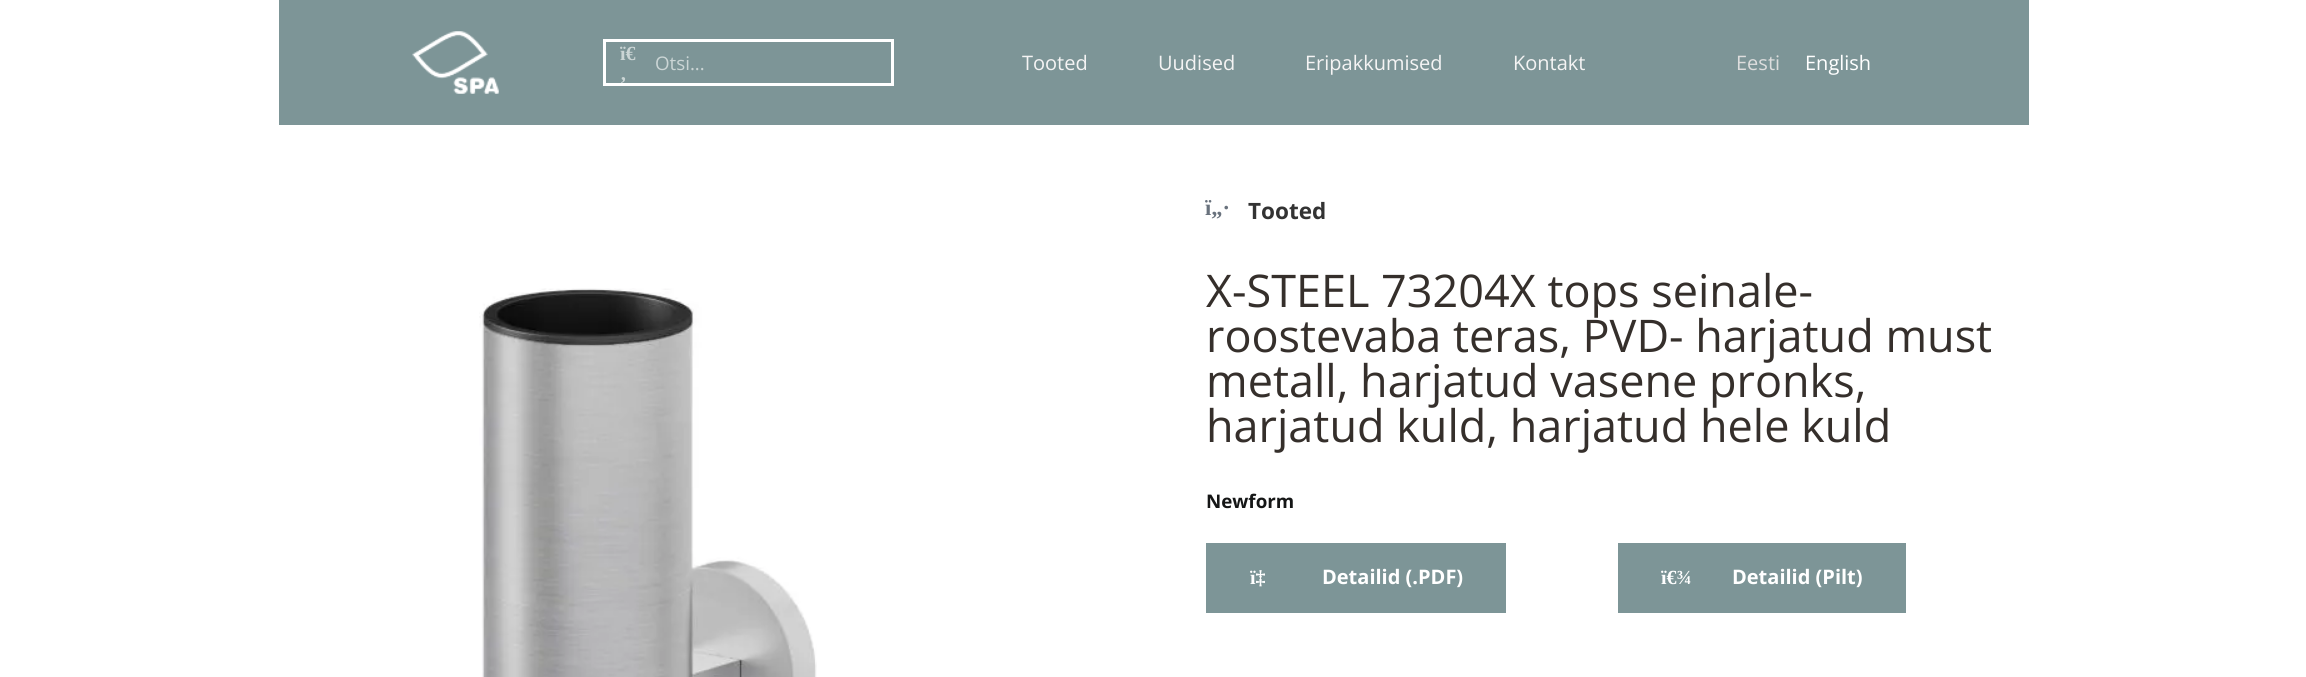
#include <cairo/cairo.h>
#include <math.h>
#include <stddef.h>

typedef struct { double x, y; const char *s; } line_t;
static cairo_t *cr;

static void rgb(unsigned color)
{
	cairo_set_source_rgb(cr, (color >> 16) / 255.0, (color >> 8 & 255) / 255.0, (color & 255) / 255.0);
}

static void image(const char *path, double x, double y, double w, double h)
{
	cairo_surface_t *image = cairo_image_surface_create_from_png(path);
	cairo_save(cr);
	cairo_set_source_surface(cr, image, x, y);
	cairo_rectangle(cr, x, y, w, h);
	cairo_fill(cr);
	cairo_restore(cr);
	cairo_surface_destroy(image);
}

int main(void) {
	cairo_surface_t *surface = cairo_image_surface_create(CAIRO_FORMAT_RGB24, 2306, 677);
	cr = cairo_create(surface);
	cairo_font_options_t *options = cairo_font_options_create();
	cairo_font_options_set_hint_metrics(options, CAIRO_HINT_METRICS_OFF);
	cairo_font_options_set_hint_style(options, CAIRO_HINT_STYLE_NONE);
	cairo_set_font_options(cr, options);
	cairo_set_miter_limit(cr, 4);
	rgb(0xffffff);
	cairo_paint(cr);
	rgb(0x7d9597);
	cairo_rectangle(cr, 279, 0, 1750, 125);
	cairo_fill(cr);
	image("img/1.png", 412, 31, 87, 63);
	cairo_rectangle(cr, 604.5, 40.5, 288, 44);
	rgb(0xffffff);
	cairo_set_line_width(cr, 3);
	cairo_stroke(cr);
	image("img/2.png", 479, 288, 338, 389);
	rgb(0x7d9597);
	cairo_rectangle(cr, 1206, 543, 300, 70);
	cairo_fill(cr);
	cairo_rectangle(cr, 1618, 543, 288, 70);
	cairo_fill(cr);
	cairo_select_font_face(cr, "Liberation Serif", CAIRO_FONT_SLANT_NORMAL, CAIRO_FONT_WEIGHT_BOLD);
	cairo_set_font_size(cr, 20);
	rgb(0xcbd5d5);
	cairo_move_to(cr, 620, 60);
	cairo_show_text(cr, "ï€");
	cairo_move_to(cr, 620, 80);
	cairo_show_text(cr, "‚");
	cairo_select_font_face(cr, "Open Sans", CAIRO_FONT_SLANT_NORMAL, CAIRO_FONT_WEIGHT_NORMAL);
	cairo_set_font_size(cr, 18.75);
	cairo_move_to(cr, 655, 70);
	cairo_show_text(cr, "Otsi...");
	cairo_set_font_size(cr, 20);
	rgb(0xf5f4f4);
	{
		static const line_t items[] = {
			{1022, 70, "Tooted"},
			{1158, 70, "Uudised"},
			{1305, 70, "Eripakkumised"},
			{1513, 70, "Kontakt"},
		};
		for (size_t i = 0; i < sizeof items / sizeof *items; i++) {
			cairo_move_to(cr, items[i].x, items[i].y);
			cairo_show_text(cr, items[i].s);
		}
	}
	rgb(0xdddddd);
	cairo_move_to(cr, 1736, 70);
	cairo_show_text(cr, "Eesti");
	rgb(0xffffff);
	cairo_move_to(cr, 1805, 70);
	cairo_show_text(cr, "English");
	cairo_select_font_face(cr, "Liberation Serif", CAIRO_FONT_SLANT_NORMAL, CAIRO_FONT_WEIGHT_BOLD);
	cairo_set_font_size(cr, 22.5);
	rgb(0x69727d);
	cairo_move_to(cr, 1205, 215);
	cairo_show_text(cr, "ï„·");
	cairo_select_font_face(cr, "Open Sans", CAIRO_FONT_SLANT_NORMAL, CAIRO_FONT_WEIGHT_BOLD);
	rgb(0x333333);
	cairo_move_to(cr, 1248, 219);
	cairo_show_text(cr, "Tooted");
	cairo_select_font_face(cr, "Open Sans", CAIRO_FONT_SLANT_NORMAL, CAIRO_FONT_WEIGHT_NORMAL);
	cairo_set_font_size(cr, 45);
	rgb(0x352f2b);
	{
		static const line_t items[] = {
			{1206, 307, "X-STEEL 73204X tops seinale-"},
			{1206, 352, "roostevaba teras, PVD- harjatud must"},
			{1206, 397, "metall, harjatud vasene pronks,"},
			{1206, 442, "harjatud kuld, harjatud hele kuld"},
		};
		for (size_t i = 0; i < sizeof items / sizeof *items; i++) {
			cairo_move_to(cr, items[i].x, items[i].y);
			cairo_show_text(cr, items[i].s);
		}
	}
	cairo_select_font_face(cr, "Open Sans", CAIRO_FONT_SLANT_NORMAL, CAIRO_FONT_WEIGHT_BOLD);
	cairo_set_font_size(cr, 18.75);
	rgb(0x151616);
	cairo_move_to(cr, 1206, 508);
	cairo_show_text(cr, "Newform");
	cairo_select_font_face(cr, "Liberation Serif", CAIRO_FONT_SLANT_NORMAL, CAIRO_FONT_WEIGHT_BOLD);
	cairo_set_font_size(cr, 20);
	rgb(0xffffff);
	cairo_move_to(cr, 1250, 584);
	cairo_show_text(cr, "ï‡");
	cairo_select_font_face(cr, "Open Sans", CAIRO_FONT_SLANT_NORMAL, CAIRO_FONT_WEIGHT_BOLD);
	cairo_move_to(cr, 1322, 584);
	cairo_show_text(cr, "Detailid (.PDF)");
	cairo_select_font_face(cr, "Liberation Serif", CAIRO_FONT_SLANT_NORMAL, CAIRO_FONT_WEIGHT_BOLD);
	cairo_move_to(cr, 1661, 584);
	cairo_show_text(cr, "ï€¾");
	cairo_select_font_face(cr, "Open Sans", CAIRO_FONT_SLANT_NORMAL, CAIRO_FONT_WEIGHT_BOLD);
	cairo_move_to(cr, 1732, 584);
	cairo_show_text(cr, "Detailid (Pilt)");
	cairo_surface_write_to_png(surface, "page.png");
	cairo_font_options_destroy(options);
	cairo_destroy(cr);
	cairo_surface_destroy(surface);
	return 0;
}
